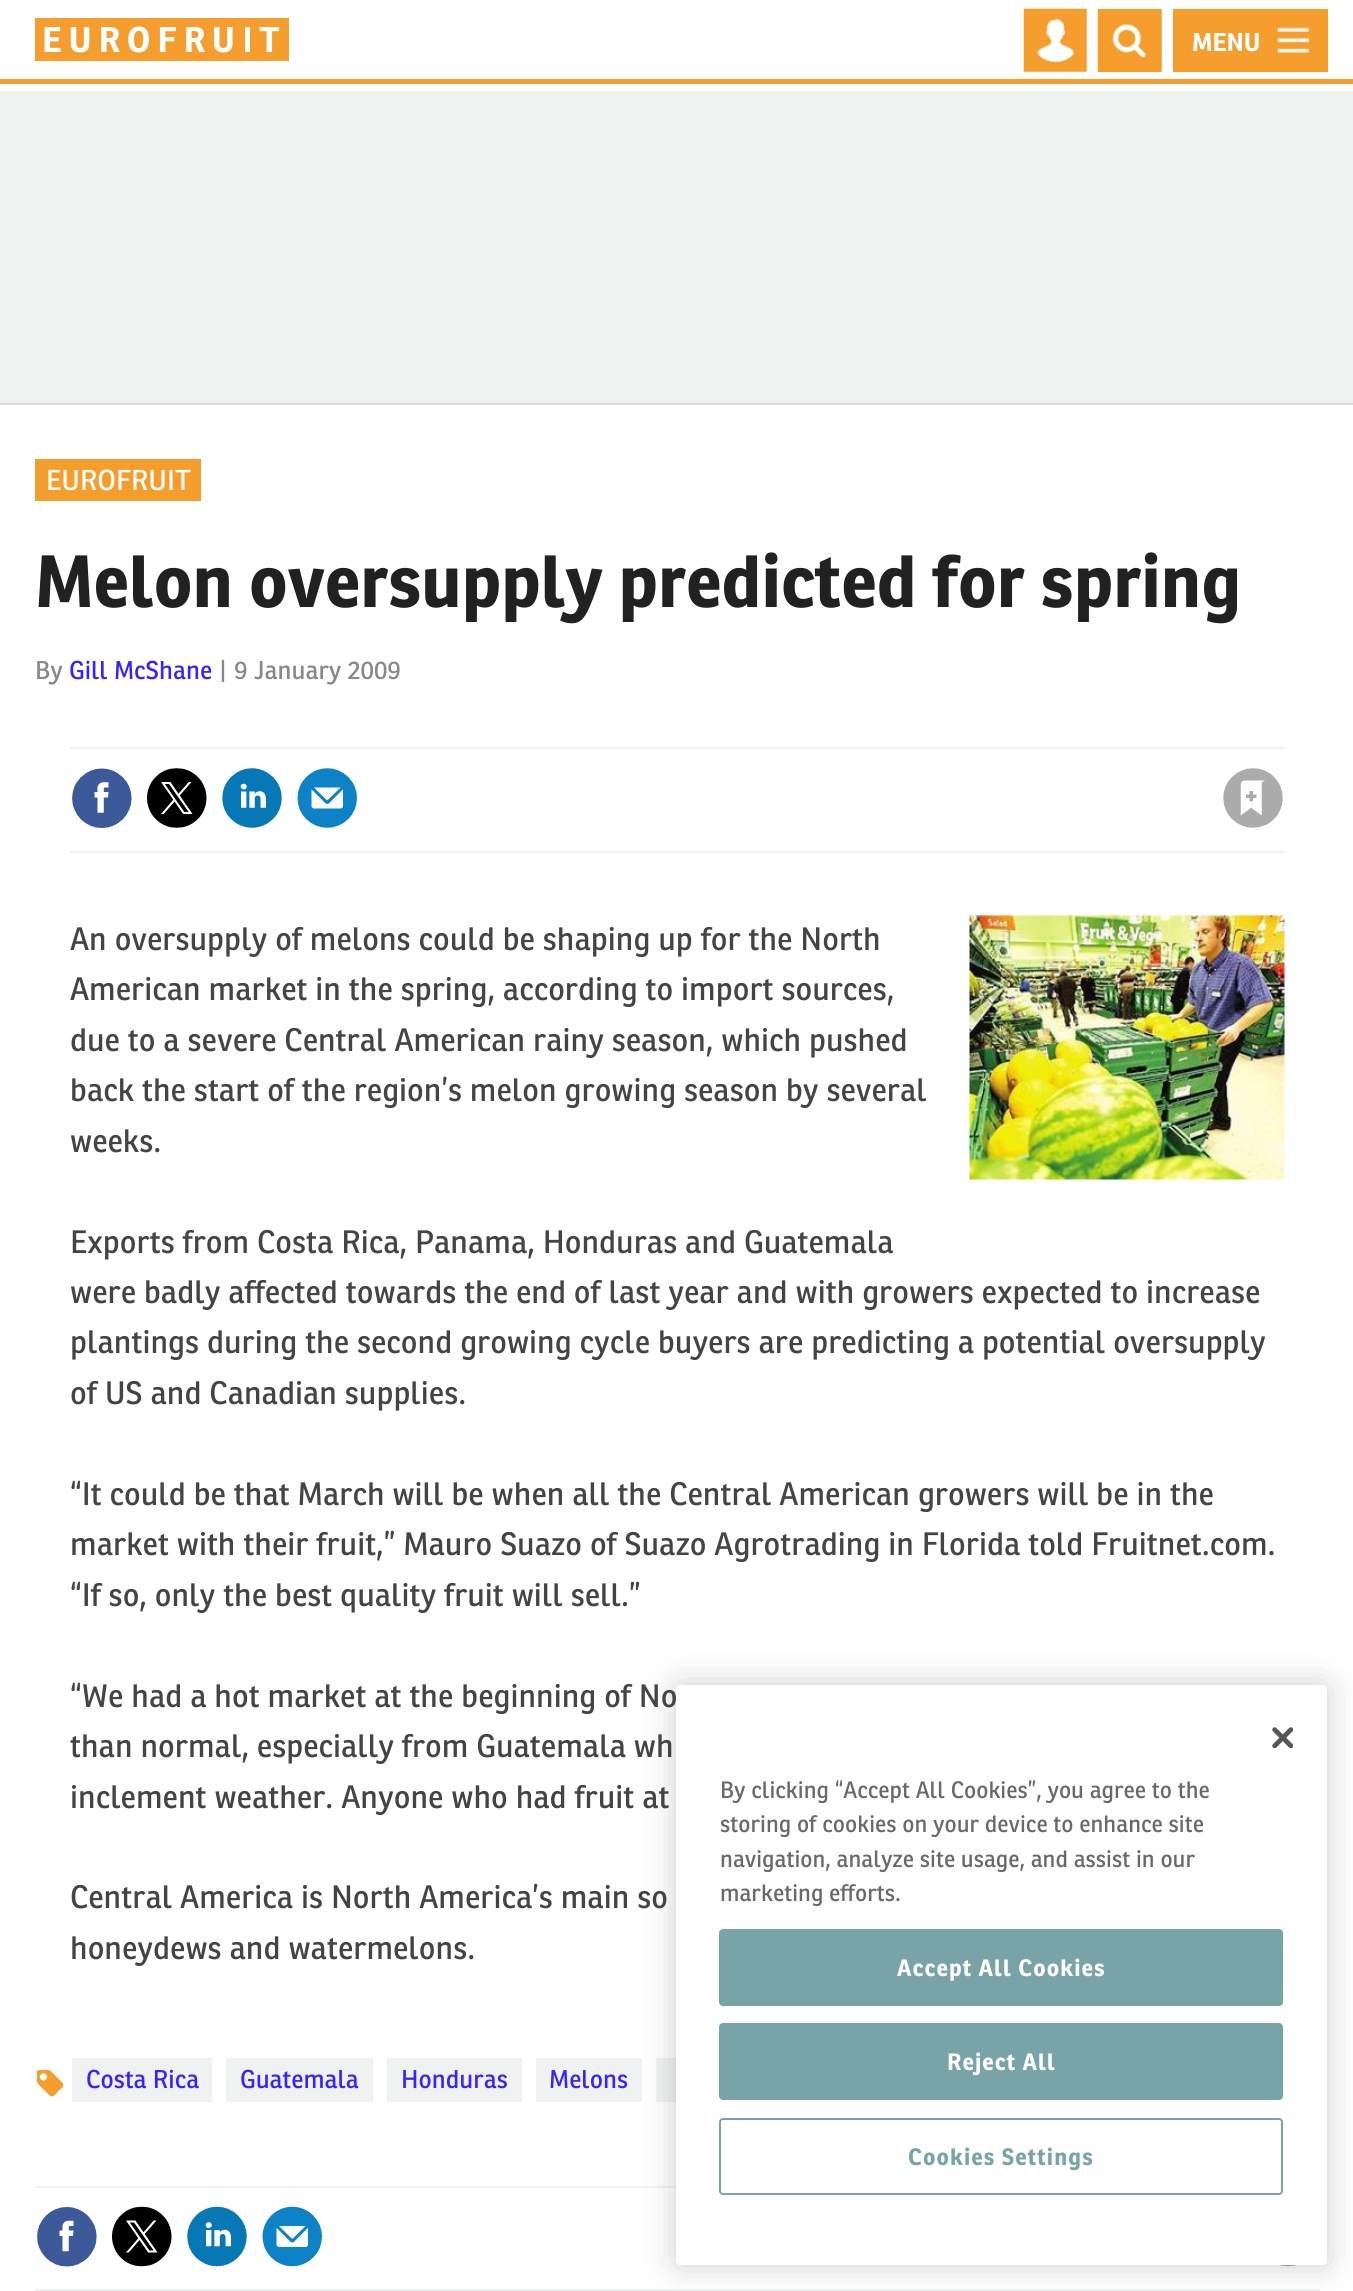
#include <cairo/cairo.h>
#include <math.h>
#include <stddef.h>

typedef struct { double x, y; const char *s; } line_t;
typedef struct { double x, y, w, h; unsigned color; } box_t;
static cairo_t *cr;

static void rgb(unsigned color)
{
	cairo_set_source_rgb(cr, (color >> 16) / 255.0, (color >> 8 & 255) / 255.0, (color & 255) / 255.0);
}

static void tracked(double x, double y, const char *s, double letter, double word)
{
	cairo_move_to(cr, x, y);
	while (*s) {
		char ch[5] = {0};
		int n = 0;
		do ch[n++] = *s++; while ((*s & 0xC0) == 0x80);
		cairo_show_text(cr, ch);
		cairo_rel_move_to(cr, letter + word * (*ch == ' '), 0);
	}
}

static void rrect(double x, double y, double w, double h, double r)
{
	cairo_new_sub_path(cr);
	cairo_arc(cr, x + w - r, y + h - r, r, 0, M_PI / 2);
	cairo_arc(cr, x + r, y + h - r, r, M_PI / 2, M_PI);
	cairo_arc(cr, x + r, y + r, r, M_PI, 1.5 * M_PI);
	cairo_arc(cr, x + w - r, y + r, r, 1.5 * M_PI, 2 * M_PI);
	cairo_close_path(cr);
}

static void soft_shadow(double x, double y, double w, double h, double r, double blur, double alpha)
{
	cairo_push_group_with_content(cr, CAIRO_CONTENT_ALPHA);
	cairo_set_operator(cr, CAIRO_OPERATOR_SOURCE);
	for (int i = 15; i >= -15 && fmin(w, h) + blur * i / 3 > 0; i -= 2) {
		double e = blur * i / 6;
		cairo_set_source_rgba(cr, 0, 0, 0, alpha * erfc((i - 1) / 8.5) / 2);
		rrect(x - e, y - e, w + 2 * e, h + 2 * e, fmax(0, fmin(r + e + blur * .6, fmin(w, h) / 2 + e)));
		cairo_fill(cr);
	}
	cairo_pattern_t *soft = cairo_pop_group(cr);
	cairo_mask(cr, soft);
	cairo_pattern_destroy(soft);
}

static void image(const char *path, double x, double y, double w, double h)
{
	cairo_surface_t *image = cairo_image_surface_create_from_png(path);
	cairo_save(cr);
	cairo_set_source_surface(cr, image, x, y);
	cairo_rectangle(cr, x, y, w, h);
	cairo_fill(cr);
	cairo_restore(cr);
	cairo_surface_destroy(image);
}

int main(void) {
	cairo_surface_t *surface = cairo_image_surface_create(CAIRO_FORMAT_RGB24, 1353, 2291);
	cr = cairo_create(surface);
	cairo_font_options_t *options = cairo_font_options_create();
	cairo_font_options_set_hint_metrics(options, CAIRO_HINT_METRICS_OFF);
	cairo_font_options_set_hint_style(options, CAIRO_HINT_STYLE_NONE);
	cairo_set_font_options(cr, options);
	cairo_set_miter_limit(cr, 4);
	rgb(0xffffff);
	cairo_paint(cr);
	image("img/1.png", 35, 18, 254, 43);
	rgb(0xf59e2d);
	cairo_rectangle(cr, 0, 79, 1353, 5);
	cairo_fill(cr);
	image("img/2.png", 1023, 8, 64, 64);
	image("img/3.png", 1097, 9, 65, 63);
	cairo_rectangle(cr, 1173, 9, 155, 63);
	cairo_fill(cr);
	image("img/4.png", 1277, 27, 32, 26);
	{
		static const box_t items[] = {
			{0, 91, 1353, 312, 0xf0f2f2},
			{0, 403, 1353, 2, 0xdcdcdc},
			{35, 459, 166, 42, 0xf59e2d},
			{70, 747, 1215, 2, 0xf0f2f2},
			{70, 851, 1215, 2, 0xf0f2f2},
		};
		for (size_t i = 0; i < sizeof items / sizeof *items; i++) {
			rgb(items[i].color);
			cairo_rectangle(cr, items[i].x, items[i].y, items[i].w, items[i].h);
			cairo_fill(cr);
		}
	}
	image("img/5.png", 72, 768, 60, 60);
	image("img/6.png", 147, 768, 60, 60);
	image("img/7.png", 222, 768, 60, 60);
	image("img/8.png", 297, 768, 60, 60);
	image("img/9.png", 1223, 768, 60, 62);
	image("img/10.png", 969, 915, 316, 265);
	image("img/11.png", 36, 2070, 28, 27);
	{
		static const box_t items[] = {
			{72, 2058, 140, 44, 0xf0f2f2},
			{226, 2058, 147, 44, 0xf0f2f2},
			{387, 2058, 135, 44, 0xf0f2f2},
			{536, 2058, 106, 44, 0xf0f2f2},
			{656, 2058, 20, 44, 0xf0f2f2},
			{35, 2186, 641, 2, 0xf0f2f2},
			{35, 2289, 1285, 2, 0xf0f2f2},
		};
		for (size_t i = 0; i < sizeof items / sizeof *items; i++) {
			rgb(items[i].color);
			cairo_rectangle(cr, items[i].x, items[i].y, items[i].w, items[i].h);
			cairo_fill(cr);
		}
	}
	image("img/12.png", 37, 2207, 60, 60);
	image("img/13.png", 112, 2206, 60, 61);
	image("img/14.png", 187, 2206, 60, 61);
	image("img/15.png", 262, 2206, 61, 61);
	image("img/16.png", 1280, 2265, 16, 2);
	rgb(0x000000);
	soft_shadow(676, 1685, 651, 580, 4, 16, 0.2);
	rgb(0xffffff);
	rrect(676, 1685, 651, 580, 4);
	cairo_fill(cr);
	image("img/17.png", 1272, 1727, 21, 21);
	rgb(0x78a4a7);
	rrect(720, 1930, 562, 75, 3);
	cairo_fill_preserve(cr);
	cairo_stroke(cr);
	rrect(720, 2024, 562, 75, 3);
	cairo_fill_preserve(cr);
	cairo_stroke(cr);
	rrect(720, 2119, 562, 75, 3);
	cairo_stroke(cr);
	cairo_select_font_face(cr, "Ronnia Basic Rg", CAIRO_FONT_SLANT_NORMAL, CAIRO_FONT_WEIGHT_BOLD);
	cairo_set_font_size(cr, 25);
	rgb(0xffffff);
	cairo_move_to(cr, 1192, 51);
	cairo_show_text(cr, "MENU");
	cairo_select_font_face(cr, "Ronnia Basic Rg", CAIRO_FONT_SLANT_NORMAL, CAIRO_FONT_WEIGHT_NORMAL);
	cairo_set_font_size(cr, 28);
	cairo_move_to(cr, 46, 490);
	cairo_show_text(cr, "EUROFRUIT");
	cairo_select_font_face(cr, "Ronnia Basic Rg", CAIRO_FONT_SLANT_NORMAL, CAIRO_FONT_WEIGHT_BOLD);
	cairo_set_font_size(cr, 71.8);
	rgb(0x212121);
	cairo_move_to(cr, 35, 607);
	cairo_show_text(cr, "Melon oversupply predicted for spring");
	cairo_select_font_face(cr, "Ronnia Basic Rg", CAIRO_FONT_SLANT_NORMAL, CAIRO_FONT_WEIGHT_NORMAL);
	cairo_set_font_size(cr, 25);
	rgb(0x888888);
	cairo_move_to(cr, 35, 679);
	cairo_show_text(cr, "By");
	rgb(0x3723ff);
	cairo_move_to(cr, 69, 679);
	cairo_show_text(cr, "Gill McShane");
	rgb(0x888888);
	cairo_move_to(cr, 220, 679);
	cairo_show_text(cr, "|");
	cairo_move_to(cr, 234, 679);
	cairo_show_text(cr, "9 January 2009");
	cairo_set_font_size(cr, 31.5);
	rgb(0x444444);
	{
		static const line_t items[] = {
			{70, 950, "An oversupply of melons could be shaping up for the North"},
			{70, 1000, "American market in the spring, according to import sources,"},
			{70, 1051, "due to a severe Central American rainy season, which pushed"},
			{70, 1101, "back the start of the region’s melon growing season by several"},
			{70, 1152, "weeks."},
			{70, 1253, "Exports from Costa Rica, Panama, Honduras and Guatemala"},
			{70, 1303, "were badly affected towards the end of last year and with growers expected to increase"},
			{70, 1353, "plantings during the second growing cycle buyers are predicting a potential oversupply"},
			{70, 1404, "of US and Canadian supplies."},
			{70, 1505, "“It could be that March will be when all the Central American growers will be in the"},
			{70, 1555, "market with their fruit,” Mauro Suazo of Suazo Agrotrading in Florida told Fruitnet.com."},
			{70, 1606, "“If so, only the best quality fruit will sell.”"},
			{70, 1707, "“We had a hot market at the beginning of No"},
			{70, 1757, "than normal, especially from Guatemala wh"},
			{70, 1808, "inclement weather. Anyone who had fruit at"},
			{70, 1908, "Central America is North America’s main so"},
			{70, 1959, "honeydews and watermelons."},
		};
		for (size_t i = 0; i < sizeof items / sizeof *items; i++) {
			cairo_move_to(cr, items[i].x, items[i].y);
			cairo_show_text(cr, items[i].s);
		}
	}
	cairo_set_font_size(cr, 25);
	rgb(0x3723ff);
	{
		static const line_t items[] = {
			{86, 2088, "Costa Rica"},
			{240, 2088, "Guatemala"},
			{401, 2088, "Honduras"},
			{549, 2088, "Melons"},
		};
		for (size_t i = 0; i < sizeof items / sizeof *items; i++) {
			cairo_move_to(cr, items[i].x, items[i].y);
			cairo_show_text(cr, items[i].s);
		}
	}
	cairo_set_font_size(cr, 23);
	rgb(0x696969);
	{
		static const line_t items[] = {
			{720, 1798, "By clicking “Accept All Cookies”, you agree to the"},
			{720, 1832, "storing of cookies on your device to enhance site"},
			{720, 1867, "navigation, analyze site usage, and assist in our"},
			{720, 1901, "marketing efforts."},
		};
		for (size_t i = 0; i < sizeof items / sizeof *items; i++) {
			cairo_move_to(cr, items[i].x, items[i].y);
			cairo_show_text(cr, items[i].s);
		}
	}
	cairo_select_font_face(cr, "Ronnia Basic Rg", CAIRO_FONT_SLANT_NORMAL, CAIRO_FONT_WEIGHT_BOLD);
	rgb(0xffffff);
	tracked(897, 1976, "Accept All Cookies", 1.1, 0);
	tracked(947, 2070, "Reject All", 1.1, 0);
	rgb(0x78a4a7);
	tracked(908, 2165, "Cookies Settings", 1.1, 0);
	cairo_surface_write_to_png(surface, "page.png");
	cairo_font_options_destroy(options);
	cairo_destroy(cr);
	cairo_surface_destroy(surface);
	return 0;
}
